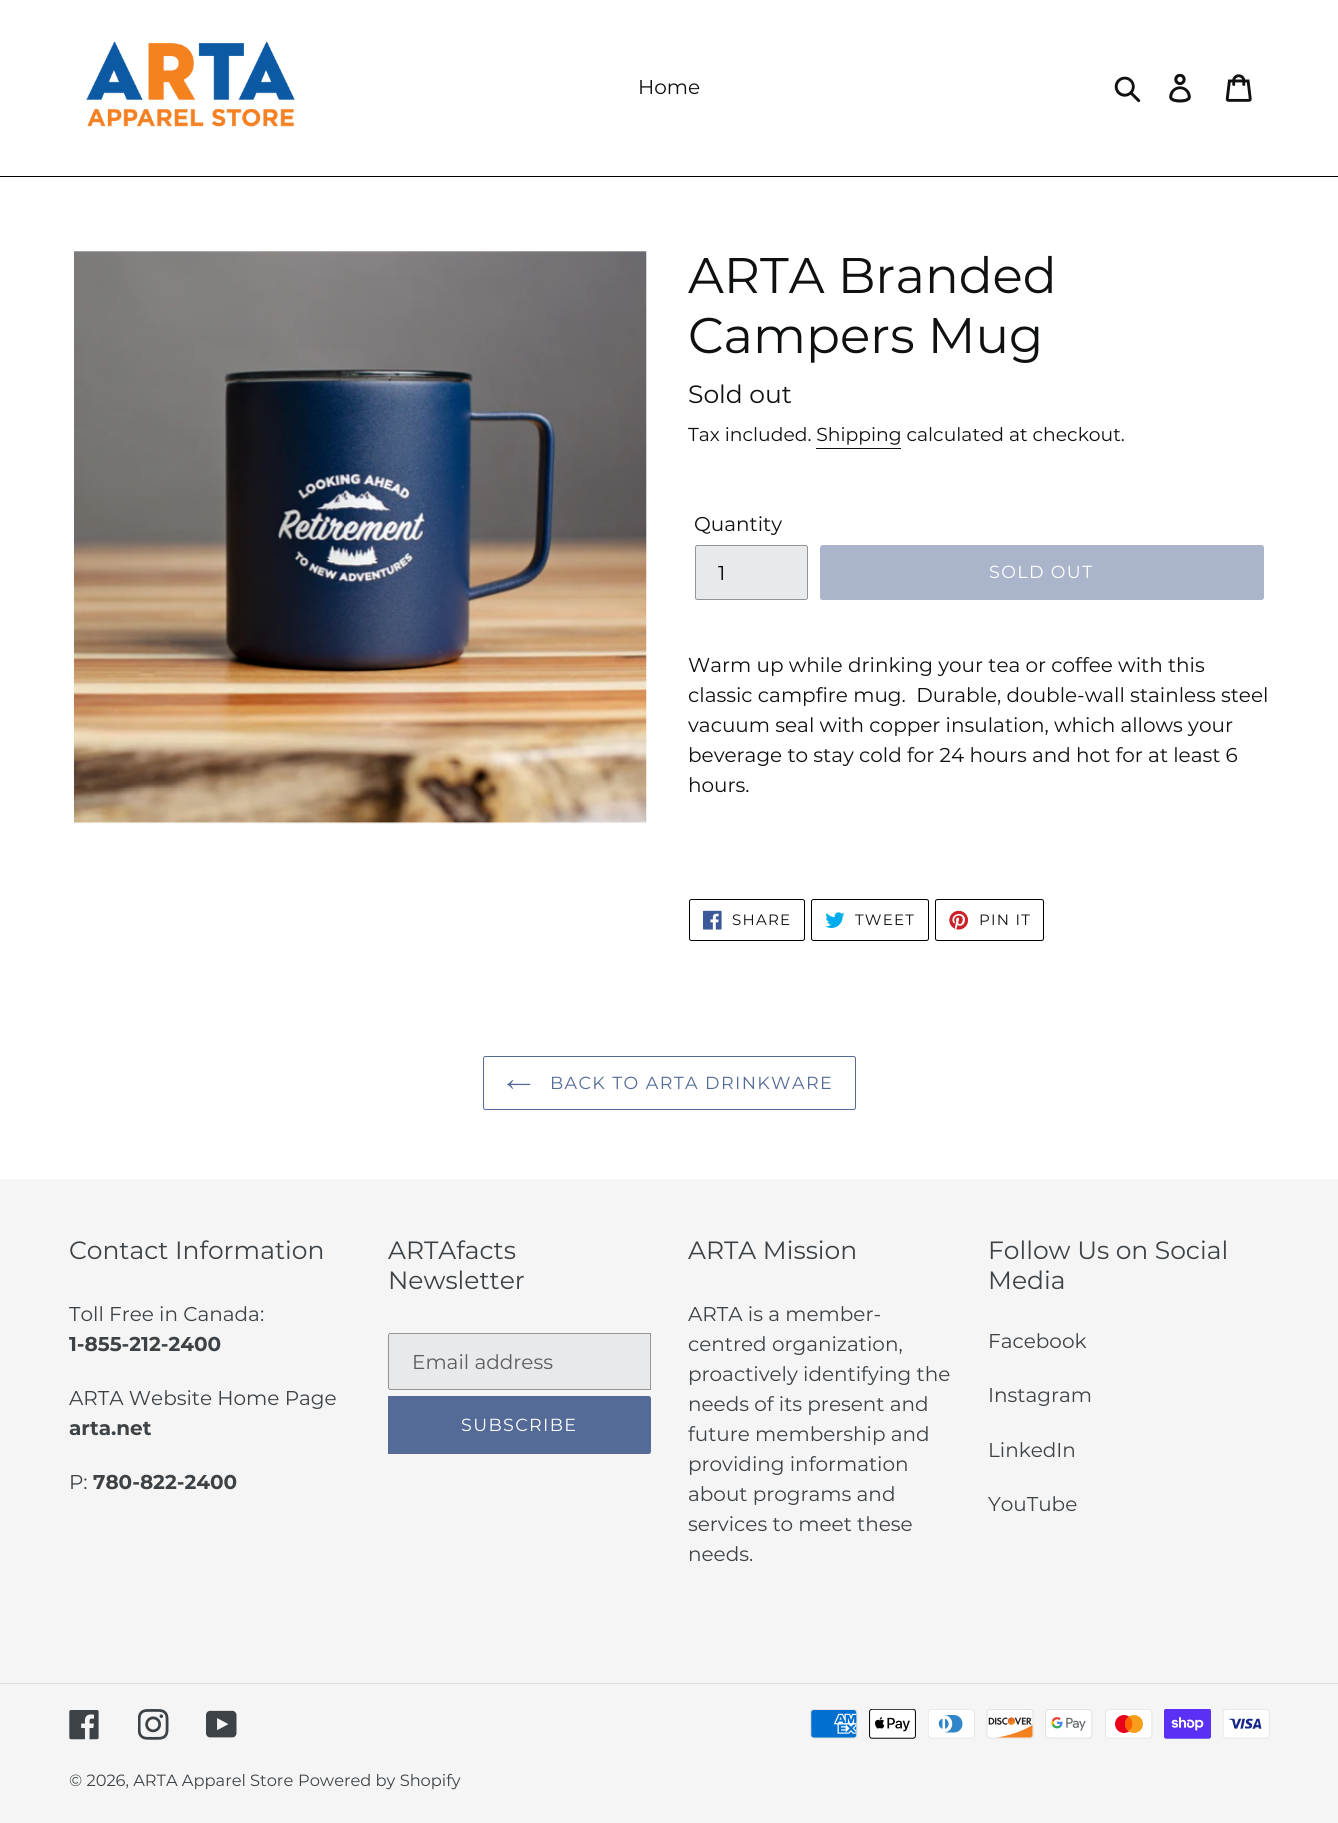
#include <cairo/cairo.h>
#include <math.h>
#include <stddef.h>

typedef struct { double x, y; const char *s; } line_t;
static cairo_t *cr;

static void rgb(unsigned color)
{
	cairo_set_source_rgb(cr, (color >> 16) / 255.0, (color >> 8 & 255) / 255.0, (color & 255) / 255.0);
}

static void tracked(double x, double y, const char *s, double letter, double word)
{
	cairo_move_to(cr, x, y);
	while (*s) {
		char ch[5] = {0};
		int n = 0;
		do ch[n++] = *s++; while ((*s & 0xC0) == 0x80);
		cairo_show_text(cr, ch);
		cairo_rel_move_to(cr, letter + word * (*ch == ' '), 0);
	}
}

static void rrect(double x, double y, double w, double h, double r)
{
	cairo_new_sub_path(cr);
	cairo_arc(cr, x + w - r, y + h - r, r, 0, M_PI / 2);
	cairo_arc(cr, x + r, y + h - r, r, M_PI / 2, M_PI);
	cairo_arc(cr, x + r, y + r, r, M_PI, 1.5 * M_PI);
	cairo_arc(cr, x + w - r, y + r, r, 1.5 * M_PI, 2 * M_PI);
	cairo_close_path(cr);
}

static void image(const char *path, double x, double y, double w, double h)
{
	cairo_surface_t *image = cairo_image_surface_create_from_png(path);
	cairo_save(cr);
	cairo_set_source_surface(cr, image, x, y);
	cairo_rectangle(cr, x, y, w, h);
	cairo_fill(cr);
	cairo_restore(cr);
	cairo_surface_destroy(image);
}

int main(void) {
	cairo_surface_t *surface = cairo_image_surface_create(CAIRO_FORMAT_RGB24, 1338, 1823);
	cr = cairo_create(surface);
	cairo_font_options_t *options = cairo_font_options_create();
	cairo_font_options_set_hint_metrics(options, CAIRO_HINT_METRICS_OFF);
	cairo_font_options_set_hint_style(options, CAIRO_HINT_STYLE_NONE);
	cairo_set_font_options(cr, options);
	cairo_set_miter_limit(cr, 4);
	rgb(0xffffff);
	cairo_paint(cr);
	rgb(0x000000);
	cairo_rectangle(cr, 0, 176, 1338, 1);
	cairo_fill(cr);
	image("img/1.png", 86, 41, 209, 86);
	image("img/2.png", 1114, 76, 27, 27);
	image("img/3.png", 1169, 74, 22, 29);
	image("img/4.png", 1225, 74, 27, 28);
	image("img/5.png", 74, 251, 573, 573);
	rgb(0x0f1011);
	cairo_rectangle(cr, 816, 448, 85, 1);
	cairo_fill(cr);
	rgb(0xe8e9eb);
	rrect(695.5, 545.5, 112, 54, 2);
	cairo_fill_preserve(cr);
	rgb(0x949494);
	cairo_set_line_width(cr, 1);
	cairo_stroke(cr);
	rgb(0xaab5cb);
	rrect(820, 545, 444, 55, 2.5);
	cairo_fill(cr);
	rrect(689.5, 899.5, 115, 41, 2);
	rgb(0x000000);
	cairo_stroke(cr);
	image("img/6.png", 703, 910, 19, 20);
	rrect(811.5, 899.5, 117, 41, 2);
	cairo_stroke(cr);
	image("img/7.png", 825, 912, 20, 16);
	rrect(935.5, 899.5, 108, 41, 2);
	cairo_stroke(cr);
	image("img/8.png", 949, 910, 20, 20);
	rrect(483.5, 1056.5, 372, 53, 2);
	rgb(0x556b97);
	cairo_stroke(cr);
	image("img/9.png", 507, 1080, 24, 9);
	rgb(0xf5f5f5);
	cairo_rectangle(cr, 0, 1179, 1338, 644);
	cairo_fill(cr);
	rgb(0xe8e9eb);
	cairo_new_path(cr);
	cairo_move_to(cr, 390.5, 1333.5);
	cairo_line_to(cr, 650.5, 1333.5);
	cairo_line_to(cr, 650.5, 1389.5);
	cairo_line_to(cr, 390.5, 1389.5);
	cairo_curve_to(cr, 389.5, 1389.5, 388.5, 1388.5, 388.5, 1387.5);
	cairo_line_to(cr, 388.5, 1335.5);
	cairo_curve_to(cr, 388.5, 1334.5, 389.5, 1333.5, 390.5, 1333.5);
	cairo_close_path(cr);
	cairo_fill_preserve(cr);
	rgb(0x949494);
	cairo_stroke(cr);
	rgb(0x556b97);
	cairo_new_path(cr);
	cairo_move_to(cr, 388, 1396);
	cairo_line_to(cr, 648.5, 1396);
	cairo_curve_to(cr, 650, 1396, 651, 1397, 651, 1398.5);
	cairo_line_to(cr, 651, 1451.5);
	cairo_curve_to(cr, 651, 1453, 650, 1454, 648.5, 1454);
	cairo_line_to(cr, 388, 1454);
	cairo_close_path(cr);
	cairo_fill(cr);
	rgb(0xdcdcdc);
	cairo_rectangle(cr, 0, 1683, 1338, 1);
	cairo_fill(cr);
	image("img/10.png", 69, 1710, 30, 30);
	image("img/11.png", 138, 1709, 31, 31);
	image("img/12.png", 206, 1710, 31, 28);
	image("img/13.png", 810, 1709, 48, 30);
	image("img/14.png", 869, 1709, 47, 30);
	image("img/15.png", 928, 1709, 47, 30);
	image("img/16.png", 986, 1709, 48, 30);
	image("img/17.png", 1045, 1709, 48, 30);
	image("img/18.png", 1105, 1709, 48, 30);
	image("img/19.png", 1164, 1709, 47, 30);
	image("img/20.png", 1223, 1709, 47, 30);
	cairo_select_font_face(cr, "Montserrat", CAIRO_FONT_SLANT_NORMAL, CAIRO_FONT_WEIGHT_NORMAL);
	cairo_set_font_size(cr, 20);
	rgb(0x0f1011);
	cairo_move_to(cr, 638, 94);
	cairo_show_text(cr, "Home");
	cairo_set_font_size(cr, 50);
	cairo_move_to(cr, 688, 293);
	cairo_show_text(cr, "ARTA Branded");
	cairo_move_to(cr, 688, 353);
	cairo_show_text(cr, "Campers Mug");
	cairo_set_font_size(cr, 25);
	cairo_move_to(cr, 688, 403);
	cairo_show_text(cr, "Sold out");
	cairo_set_font_size(cr, 18.75);
	cairo_move_to(cr, 688, 441);
	cairo_show_text(cr, "Tax included. Shipping calculated at checkout.");
	cairo_set_font_size(cr, 20);
	cairo_move_to(cr, 694, 531);
	cairo_show_text(cr, "Quantity");
	rgb(0x000000);
	cairo_move_to(cr, 718, 580);
	cairo_show_text(cr, "1");
	cairo_set_font_size(cr, 17.5);
	rgb(0xffffff);
	tracked(989, 578, "SOLD OUT", 1.4, 0);
	cairo_set_font_size(cr, 20);
	rgb(0x0f1011);
	{
		static const line_t items[] = {
			{688, 672, "Warm up while drinking your tea or coffee with this"},
			{688, 702, "classic campfire mug.  Durable, double-wall stainless steel"},
			{688, 732, "vacuum seal with copper insulation, which allows your"},
			{688, 762, "beverage to stay cold for 24 hours and hot for at least 6"},
			{688, 792, "hours."},
		};
		for (size_t i = 0; i < sizeof items / sizeof *items; i++) {
			cairo_move_to(cr, items[i].x, items[i].y);
			cairo_show_text(cr, items[i].s);
		}
	}
	cairo_set_font_size(cr, 15);
	{
		static const line_t items[] = {
			{732, 925, "SHARE"},
			{855, 925, "TWEET"},
			{979, 925, "PIN IT"},
		};
		for (size_t i = 0; i < sizeof items / sizeof *items; i++) {
			tracked(items[i].x, items[i].y, items[i].s, 1.25, 0);
		}
	}
	cairo_set_font_size(cr, 17.5);
	rgb(0x556b97);
	tracked(550, 1089, "BACK TO ARTA DRINKWARE", 1.4, 0);
	cairo_set_font_size(cr, 25);
	rgb(0x3d4246);
	cairo_move_to(cr, 69, 1259);
	cairo_show_text(cr, "Contact Information");
	cairo_set_font_size(cr, 20);
	cairo_move_to(cr, 69, 1321);
	cairo_show_text(cr, "Toll Free in Canada:");
	cairo_select_font_face(cr, "Montserrat", CAIRO_FONT_SLANT_NORMAL, CAIRO_FONT_WEIGHT_BOLD);
	cairo_move_to(cr, 69, 1351);
	cairo_show_text(cr, "1-855-212-2400");
	cairo_select_font_face(cr, "Montserrat", CAIRO_FONT_SLANT_NORMAL, CAIRO_FONT_WEIGHT_NORMAL);
	cairo_move_to(cr, 69, 1405);
	cairo_show_text(cr, "ARTA Website Home Page");
	cairo_select_font_face(cr, "Montserrat", CAIRO_FONT_SLANT_NORMAL, CAIRO_FONT_WEIGHT_BOLD);
	cairo_move_to(cr, 69, 1435);
	cairo_show_text(cr, "arta.net");
	cairo_select_font_face(cr, "Montserrat", CAIRO_FONT_SLANT_NORMAL, CAIRO_FONT_WEIGHT_NORMAL);
	cairo_move_to(cr, 69, 1489);
	cairo_show_text(cr, "P:");
	cairo_select_font_face(cr, "Montserrat", CAIRO_FONT_SLANT_NORMAL, CAIRO_FONT_WEIGHT_BOLD);
	cairo_move_to(cr, 93, 1489);
	cairo_show_text(cr, "780-822-2400");
	cairo_select_font_face(cr, "Montserrat", CAIRO_FONT_SLANT_NORMAL, CAIRO_FONT_WEIGHT_NORMAL);
	cairo_set_font_size(cr, 25);
	cairo_move_to(cr, 388, 1259);
	cairo_show_text(cr, "ARTAfacts");
	cairo_move_to(cr, 388, 1289);
	cairo_show_text(cr, "Newsletter");
	cairo_set_font_size(cr, 20);
	rgb(0x5d5d5e);
	cairo_move_to(cr, 412, 1369);
	cairo_show_text(cr, "Email address");
	cairo_set_font_size(cr, 17.5);
	rgb(0xffffff);
	tracked(461, 1431, "SUBSCRIBE", 1.4, 0);
	cairo_set_font_size(cr, 25);
	rgb(0x3d4246);
	cairo_move_to(cr, 688, 1259);
	cairo_show_text(cr, "ARTA Mission");
	cairo_set_font_size(cr, 20);
	{
		static const line_t items[] = {
			{688, 1321, "ARTA is a member-"},
			{688, 1351, "centred organization,"},
			{688, 1381, "proactively identifying the"},
			{688, 1411, "needs of its present and"},
			{688, 1441, "future membership and"},
			{688, 1471, "providing information"},
			{688, 1501, "about programs and"},
			{688, 1531, "services to meet these"},
			{688, 1561, "needs."},
		};
		for (size_t i = 0; i < sizeof items / sizeof *items; i++) {
			cairo_move_to(cr, items[i].x, items[i].y);
			cairo_show_text(cr, items[i].s);
		}
	}
	cairo_set_font_size(cr, 25);
	cairo_move_to(cr, 988, 1259);
	cairo_show_text(cr, "Follow Us on Social");
	cairo_move_to(cr, 988, 1289);
	cairo_show_text(cr, "Media");
	cairo_set_font_size(cr, 20);
	{
		static const line_t items[] = {
			{988, 1348, "Facebook"},
			{988, 1402, "Instagram"},
			{988, 1457, "LinkedIn"},
			{988, 1511, "YouTube"},
		};
		for (size_t i = 0; i < sizeof items / sizeof *items; i++) {
			cairo_move_to(cr, items[i].x, items[i].y);
			cairo_show_text(cr, items[i].s);
		}
	}
	cairo_set_font_size(cr, 16.25);
	cairo_move_to(cr, 69, 1786);
	cairo_show_text(cr, "© 2026, ARTA Apparel Store");
	cairo_move_to(cr, 298, 1786);
	cairo_show_text(cr, "Powered by Shopify");
	cairo_surface_write_to_png(surface, "page.png");
	cairo_font_options_destroy(options);
	cairo_destroy(cr);
	cairo_surface_destroy(surface);
	return 0;
}
